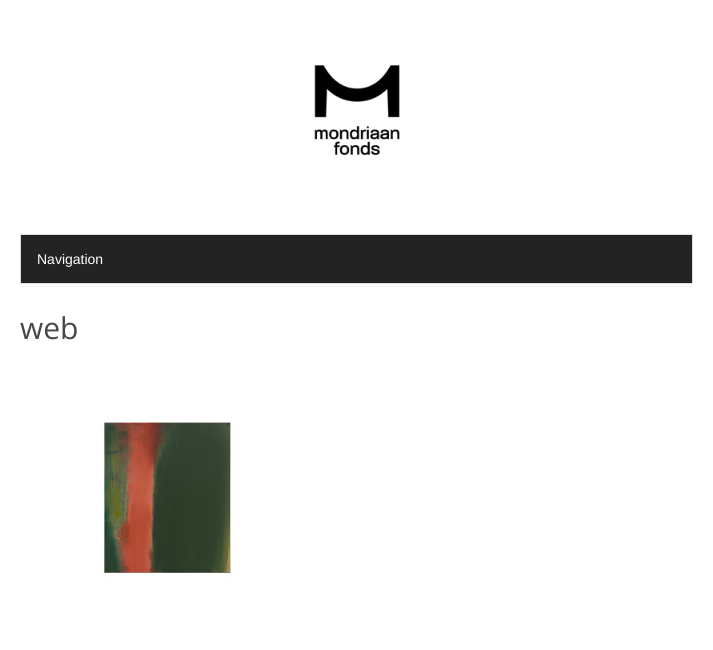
#include <cairo/cairo.h>
#include <math.h>
#include <stddef.h>

static cairo_t *cr;

static void rgb(unsigned color)
{
	cairo_set_source_rgb(cr, (color >> 16) / 255.0, (color >> 8 & 255) / 255.0, (color & 255) / 255.0);
}

static void image(const char *path, double x, double y, double w, double h)
{
	cairo_surface_t *image = cairo_image_surface_create_from_png(path);
	cairo_save(cr);
	cairo_set_source_surface(cr, image, x, y);
	cairo_rectangle(cr, x, y, w, h);
	cairo_fill(cr);
	cairo_restore(cr);
	cairo_surface_destroy(image);
}

int main(void) {
	cairo_surface_t *surface = cairo_image_surface_create(CAIRO_FORMAT_RGB24, 713, 650);
	cr = cairo_create(surface);
	cairo_font_options_t *options = cairo_font_options_create();
	cairo_font_options_set_hint_metrics(options, CAIRO_HINT_METRICS_OFF);
	cairo_font_options_set_hint_style(options, CAIRO_HINT_STYLE_NONE);
	cairo_set_font_options(cr, options);
	cairo_set_miter_limit(cr, 4);
	rgb(0xffffff);
	cairo_paint(cr);
	image("img/1.png", 314, 65, 86, 91);
	rgb(0xf2f2f2);
	cairo_rectangle(cr, 20, 286, 673, 1);
	cairo_fill(cr);
	rgb(0x232323);
	cairo_rectangle(cr, 20.5, 234.5, 672, 49);
	cairo_fill_preserve(cr);
	rgb(0xdddddd);
	cairo_set_line_width(cr, 1);
	cairo_stroke(cr);
	image("img/2.png", 100, 419, 136, 160);
	cairo_select_font_face(cr, "Liberation Sans", CAIRO_FONT_SLANT_NORMAL, CAIRO_FONT_WEIGHT_NORMAL);
	cairo_set_font_size(cr, 14);
	rgb(0xffffff);
	cairo_move_to(cr, 37, 264);
	cairo_show_text(cr, "Navigation");
	cairo_select_font_face(cr, "Open Sans", CAIRO_FONT_SLANT_NORMAL, CAIRO_FONT_WEIGHT_NORMAL);
	cairo_set_font_size(cr, 30);
	rgb(0x474747);
	cairo_move_to(cr, 20, 339);
	cairo_show_text(cr, "web");
	cairo_surface_write_to_png(surface, "page.png");
	cairo_font_options_destroy(options);
	cairo_destroy(cr);
	cairo_surface_destroy(surface);
	return 0;
}
